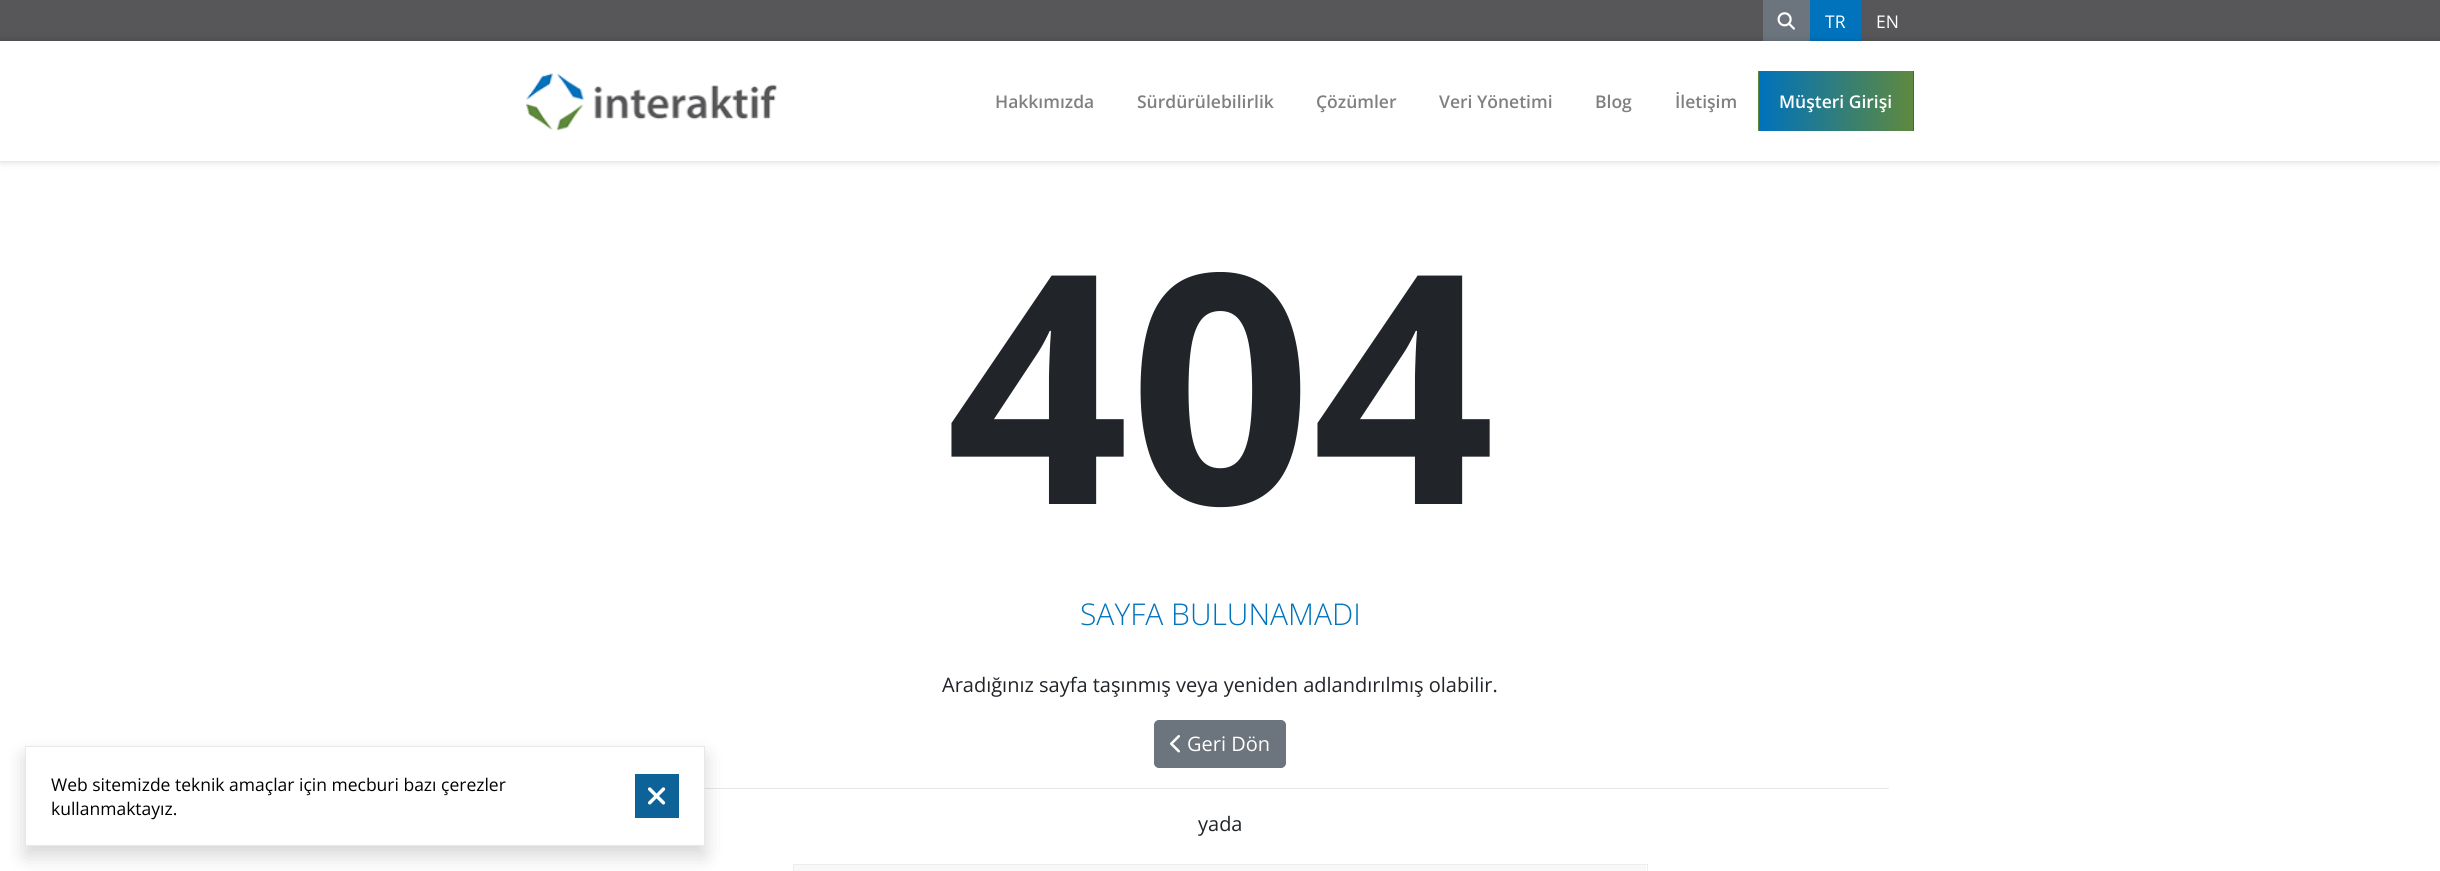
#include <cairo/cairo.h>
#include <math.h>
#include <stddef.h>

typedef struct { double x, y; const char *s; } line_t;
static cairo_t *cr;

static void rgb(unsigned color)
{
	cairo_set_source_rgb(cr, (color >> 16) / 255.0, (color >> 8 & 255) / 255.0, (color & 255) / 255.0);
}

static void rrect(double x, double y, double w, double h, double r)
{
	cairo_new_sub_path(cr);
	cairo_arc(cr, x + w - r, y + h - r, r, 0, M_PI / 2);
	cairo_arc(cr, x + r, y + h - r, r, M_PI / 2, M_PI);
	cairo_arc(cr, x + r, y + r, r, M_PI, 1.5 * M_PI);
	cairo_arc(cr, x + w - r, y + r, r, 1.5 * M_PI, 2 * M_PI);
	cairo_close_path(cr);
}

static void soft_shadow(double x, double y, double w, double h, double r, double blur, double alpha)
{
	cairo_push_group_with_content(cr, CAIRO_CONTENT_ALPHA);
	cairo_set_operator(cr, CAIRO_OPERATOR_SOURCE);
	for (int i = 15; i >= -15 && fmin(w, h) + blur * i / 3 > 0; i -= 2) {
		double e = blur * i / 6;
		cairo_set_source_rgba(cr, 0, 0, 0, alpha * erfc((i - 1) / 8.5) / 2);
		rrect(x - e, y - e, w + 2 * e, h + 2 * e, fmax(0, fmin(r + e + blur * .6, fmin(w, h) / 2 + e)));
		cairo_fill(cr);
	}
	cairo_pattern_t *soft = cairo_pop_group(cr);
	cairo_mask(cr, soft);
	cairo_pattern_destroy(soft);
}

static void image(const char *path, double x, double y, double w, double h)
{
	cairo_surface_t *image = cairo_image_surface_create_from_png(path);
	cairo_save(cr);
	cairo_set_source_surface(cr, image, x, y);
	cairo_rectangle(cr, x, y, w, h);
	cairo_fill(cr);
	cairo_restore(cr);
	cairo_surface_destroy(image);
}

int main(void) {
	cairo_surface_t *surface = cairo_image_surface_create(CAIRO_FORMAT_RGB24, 2440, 871);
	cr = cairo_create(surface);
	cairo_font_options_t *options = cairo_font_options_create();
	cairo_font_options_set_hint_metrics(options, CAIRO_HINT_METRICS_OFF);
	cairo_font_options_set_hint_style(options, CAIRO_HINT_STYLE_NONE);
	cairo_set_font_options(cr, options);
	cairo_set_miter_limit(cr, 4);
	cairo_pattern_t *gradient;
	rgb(0xffffff);
	cairo_paint(cr);
	rgb(0x575759);
	cairo_rectangle(cr, 0, 0, 2440, 41);
	cairo_fill(cr);
	rgb(0x6c757d);
	cairo_rectangle(cr, 1763, 0, 47, 41);
	cairo_fill(cr);
	image("img/1.png", 1777, 12, 18, 18);
	rgb(0x0073bc);
	cairo_rectangle(cr, 1810, 0, 51, 41);
	cairo_fill(cr);
	rgb(0x000000);
	soft_shadow(0, 41, 2440, 120, 0, 4, 0.18);
	rgb(0xffffff);
	cairo_rectangle(cr, 0, 41, 2440, 120);
	cairo_fill(cr);
	image("img/2.png", 526, 73, 251, 58);
	rgb(0x0072bc);
	cairo_rectangle(cr, 1913, 71, 1, 60);
	cairo_fill(cr);
	gradient = cairo_pattern_create_linear(1605, 101, 1759, 101);
	cairo_pattern_add_color_stop_rgba(gradient, 0, 0, 0.447, 0.737, 1);
	cairo_pattern_add_color_stop_rgba(gradient, 1, 0.373, 0.537, 0.243, 1);
	cairo_set_source(cr, gradient);
	cairo_pattern_destroy(gradient);
	cairo_rectangle(cr, 1758, 71, 1, 60);
	cairo_fill(cr);
	gradient = cairo_pattern_create_linear(1759, 101, 1913, 101);
	cairo_pattern_add_color_stop_rgba(gradient, 0, 0, 0.447, 0.737, 1);
	cairo_pattern_add_color_stop_rgba(gradient, 1, 0.373, 0.537, 0.243, 1);
	cairo_set_source(cr, gradient);
	cairo_pattern_destroy(gradient);
	cairo_rectangle(cr, 1759, 71, 154, 60);
	cairo_fill(cr);
	rgb(0xe6e6e6);
	cairo_rectangle(cr, 705, 788, 1184, 1);
	cairo_fill(cr);
	rgb(0x000000);
	soft_shadow(25, 756, 680, 100, 0, 10, 0.16);
	rgb(0xffffff);
	cairo_rectangle(cr, 25.5, 746.5, 679, 99);
	cairo_fill_preserve(cr);
	rgb(0xe8e8e8);
	cairo_set_line_width(cr, 1);
	cairo_stroke(cr);
	rgb(0x0d6298);
	cairo_rectangle(cr, 635, 774, 44, 44);
	cairo_fill(cr);
	image("img/3.png", 648, 787, 18, 18);
	rgb(0x6c757d);
	rrect(1154.5, 720.5, 131, 47, 4.5);
	cairo_fill_preserve(cr);
	cairo_stroke(cr);
	image("img/4.png", 1170, 735, 10, 18);
	rgb(0xf8f8f8);
	cairo_rectangle(cr, 794, 865, 852, 6);
	cairo_fill(cr);
	cairo_rectangle(cr, 793.5, 864.5, 854, 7);
	rgb(0xededed);
	cairo_stroke(cr);
	cairo_select_font_face(cr, "Open Sans", CAIRO_FONT_SLANT_NORMAL, CAIRO_FONT_WEIGHT_NORMAL);
	cairo_set_font_size(cr, 17.5);
	rgb(0xffffff);
	cairo_move_to(cr, 1825, 28);
	cairo_show_text(cr, "TR");
	cairo_move_to(cr, 1876, 28);
	cairo_show_text(cr, "EN");
	cairo_select_font_face(cr, "Open Sans SemiBold", CAIRO_FONT_SLANT_NORMAL, CAIRO_FONT_WEIGHT_NORMAL);
	rgb(0x808080);
	{
		static const line_t items[] = {
			{995, 108, "Hakkımızda"},
			{1137, 108, "Sürdürülebilirlik"},
			{1316, 108, "Çözümler"},
			{1439, 108, "Veri Yönetimi"},
			{1595, 108, "Blog"},
			{1675, 108, "İletişim"},
		};
		for (size_t i = 0; i < sizeof items / sizeof *items; i++) {
			cairo_move_to(cr, items[i].x, items[i].y);
			cairo_show_text(cr, items[i].s);
		}
	}
	rgb(0xffffff);
	cairo_move_to(cr, 1779, 108);
	cairo_show_text(cr, "Müşteri Girişi");
	cairo_select_font_face(cr, "Open Sans", CAIRO_FONT_SLANT_NORMAL, CAIRO_FONT_WEIGHT_NORMAL);
	rgb(0x000000);
	cairo_move_to(cr, 51, 791);
	cairo_show_text(cr, "Web sitemizde teknik amaçlar için mecburi bazı çerezler");
	cairo_move_to(cr, 51, 815);
	cairo_show_text(cr, "kullanmaktayız.");
	cairo_select_font_face(cr, "Open Sans", CAIRO_FONT_SLANT_NORMAL, CAIRO_FONT_WEIGHT_BOLD);
	cairo_set_font_size(cr, 320);
	rgb(0x212529);
	cairo_move_to(cr, 946, 504);
	cairo_show_text(cr, "404");
	cairo_select_font_face(cr, "Open Sans Light", CAIRO_FONT_SLANT_NORMAL, CAIRO_FONT_WEIGHT_NORMAL);
	cairo_set_font_size(cr, 30);
	rgb(0x0073bc);
	cairo_move_to(cr, 1080, 625);
	cairo_show_text(cr, "SAYFA BULUNAMADI");
	cairo_select_font_face(cr, "Open Sans", CAIRO_FONT_SLANT_NORMAL, CAIRO_FONT_WEIGHT_NORMAL);
	cairo_set_font_size(cr, 20);
	rgb(0x212529);
	cairo_move_to(cr, 942, 692);
	cairo_show_text(cr, "Aradığınız sayfa taşınmış veya yeniden adlandırılmış olabilir.");
	rgb(0xffffff);
	cairo_move_to(cr, 1187, 751);
	cairo_show_text(cr, "Geri Dön");
	rgb(0x212529);
	cairo_move_to(cr, 1198, 831);
	cairo_show_text(cr, "yada");
	cairo_surface_write_to_png(surface, "page.png");
	cairo_font_options_destroy(options);
	cairo_destroy(cr);
	cairo_surface_destroy(surface);
	return 0;
}
